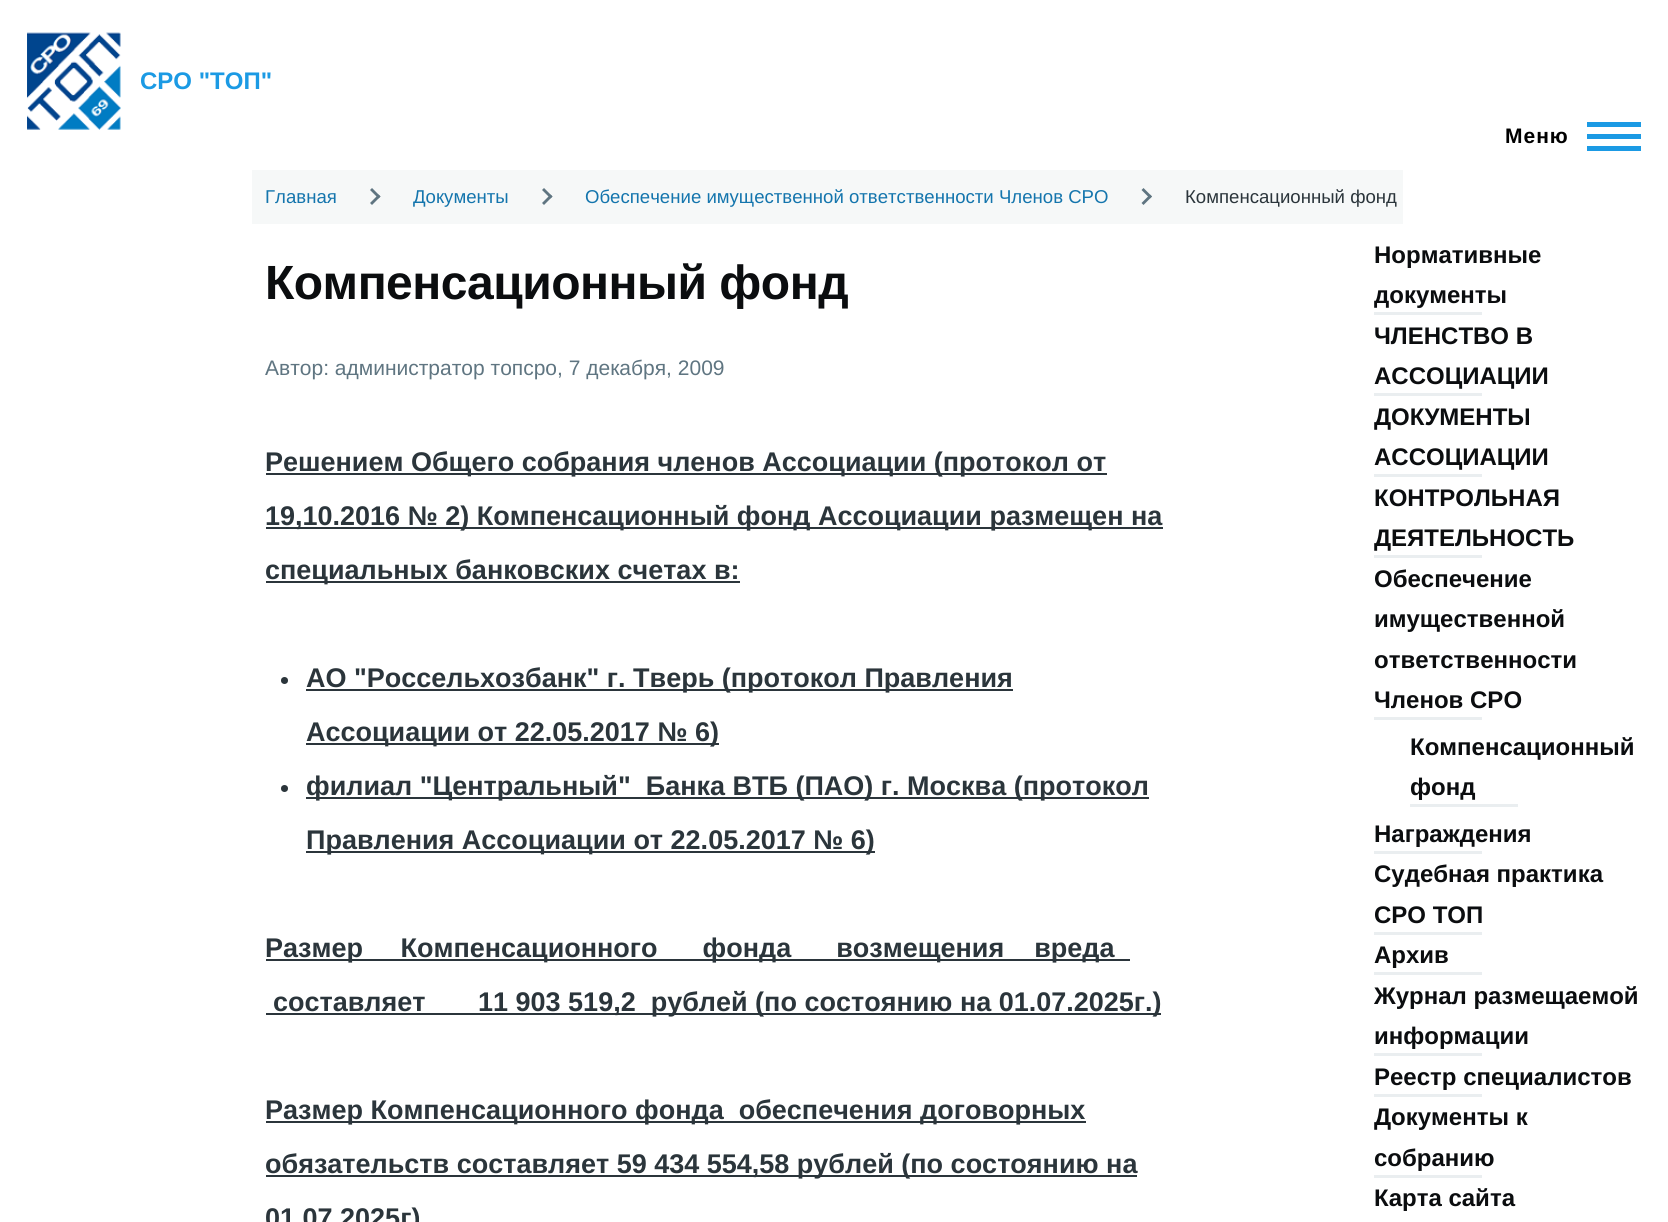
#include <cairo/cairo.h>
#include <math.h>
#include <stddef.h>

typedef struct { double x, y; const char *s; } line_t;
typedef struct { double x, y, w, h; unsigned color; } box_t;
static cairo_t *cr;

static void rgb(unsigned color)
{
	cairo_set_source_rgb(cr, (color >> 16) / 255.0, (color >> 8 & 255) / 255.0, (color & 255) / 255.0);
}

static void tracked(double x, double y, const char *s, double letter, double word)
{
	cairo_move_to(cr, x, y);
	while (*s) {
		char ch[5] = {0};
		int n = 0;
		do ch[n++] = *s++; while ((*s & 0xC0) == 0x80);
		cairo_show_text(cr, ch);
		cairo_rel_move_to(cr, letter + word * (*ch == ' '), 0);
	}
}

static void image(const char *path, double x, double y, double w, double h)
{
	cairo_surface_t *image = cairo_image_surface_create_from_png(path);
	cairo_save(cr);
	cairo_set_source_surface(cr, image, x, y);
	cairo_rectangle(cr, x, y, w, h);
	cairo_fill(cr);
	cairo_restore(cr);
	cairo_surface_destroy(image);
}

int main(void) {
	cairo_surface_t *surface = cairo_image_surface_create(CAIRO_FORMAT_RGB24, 1668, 1222);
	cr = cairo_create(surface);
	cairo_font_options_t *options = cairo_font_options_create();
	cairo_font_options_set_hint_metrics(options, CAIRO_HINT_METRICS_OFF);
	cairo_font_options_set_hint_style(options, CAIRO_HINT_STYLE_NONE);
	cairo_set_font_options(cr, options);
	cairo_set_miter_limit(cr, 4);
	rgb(0xffffff);
	cairo_paint(cr);
	image("img/1.png", 27, 32, 94, 98);
	{
		static const box_t items[] = {
			{1587, 134, 54, 5, 0x1b9ae4},
			{1587, 122, 54, 5, 0x1b9ae4},
			{1587, 146, 54, 5, 0x1b9ae4},
			{252, 170, 1151, 54, 0xf6f8f8},
		};
		for (size_t i = 0; i < sizeof items / sizeof *items; i++) {
			rgb(items[i].color);
			cairo_rectangle(cr, items[i].x, items[i].y, items[i].w, items[i].h);
			cairo_fill(cr);
		}
	}
	rgb(0x5f7581);
	cairo_new_path(cr);
	cairo_move_to(cr, 372, 188);
	cairo_line_to(cr, 380.5, 196.5);
	cairo_line_to(cr, 378.5, 198.5);
	cairo_line_to(cr, 370, 190);
	cairo_close_path(cr);
	cairo_fill(cr);
	cairo_new_path(cr);
	cairo_move_to(cr, 378.5, 194.5);
	cairo_line_to(cr, 380.5, 196.5);
	cairo_line_to(cr, 372, 205);
	cairo_line_to(cr, 370, 203);
	cairo_close_path(cr);
	cairo_fill(cr);
	cairo_new_path(cr);
	cairo_move_to(cr, 544, 188);
	cairo_line_to(cr, 552.5, 196.5);
	cairo_line_to(cr, 550.5, 198.5);
	cairo_line_to(cr, 542, 190);
	cairo_close_path(cr);
	cairo_fill(cr);
	cairo_new_path(cr);
	cairo_move_to(cr, 550.5, 194.5);
	cairo_line_to(cr, 552.5, 196.5);
	cairo_line_to(cr, 544, 205);
	cairo_line_to(cr, 542, 203);
	cairo_close_path(cr);
	cairo_fill(cr);
	cairo_new_path(cr);
	cairo_move_to(cr, 1143.5, 188);
	cairo_line_to(cr, 1152, 196.5);
	cairo_line_to(cr, 1150, 198.5);
	cairo_line_to(cr, 1141.5, 190);
	cairo_close_path(cr);
	cairo_fill(cr);
	cairo_new_path(cr);
	cairo_move_to(cr, 1150, 194.5);
	cairo_line_to(cr, 1152, 196.5);
	cairo_line_to(cr, 1143.5, 205);
	cairo_line_to(cr, 1141.5, 203);
	cairo_close_path(cr);
	cairo_fill(cr);
	{
		static const box_t items[] = {
			{266, 473, 841, 2, 0x2b353b},
			{266, 527, 897, 2, 0x2b353b},
			{266, 581, 474, 2, 0x2b353b},
		};
		for (size_t i = 0; i < sizeof items / sizeof *items; i++) {
			rgb(items[i].color);
			cairo_rectangle(cr, items[i].x, items[i].y, items[i].w, items[i].h);
			cairo_fill(cr);
		}
	}
	cairo_arc(cr, 284.5, 680.5, 3.5, 0, 2 * M_PI);
	cairo_fill(cr);
	cairo_rectangle(cr, 306, 689, 707, 2);
	cairo_fill(cr);
	cairo_rectangle(cr, 306, 743, 413, 2);
	cairo_fill(cr);
	cairo_arc(cr, 284.5, 788.5, 3.5, 0, 2 * M_PI);
	cairo_fill(cr);
	{
		static const box_t items[] = {
			{306, 797, 843, 2, 0x2b353b},
			{306, 851, 569, 2, 0x2b353b},
			{266, 959, 864, 2, 0x2b353b},
			{266, 1013, 895, 2, 0x2b353b},
			{266, 1121, 820, 2, 0x2b353b},
			{266, 1175, 871, 2, 0x2b353b},
			{1374, 312, 108, 3, 0xeaeef0},
			{1374, 393, 108, 3, 0xeaeef0},
			{1374, 474, 108, 3, 0xeaeef0},
			{1374, 555, 108, 3, 0xeaeef0},
			{1374, 717, 108, 3, 0xeaeef0},
			{1410, 804, 108, 3, 0xeaeef0},
			{1374, 851, 108, 3, 0xeaeef0},
			{1374, 932, 108, 3, 0xeaeef0},
			{1374, 972, 108, 3, 0xeaeef0},
			{1374, 1053, 108, 3, 0xeaeef0},
			{1374, 1094, 108, 3, 0xeaeef0},
			{1374, 1175, 108, 3, 0xeaeef0},
		};
		for (size_t i = 0; i < sizeof items / sizeof *items; i++) {
			rgb(items[i].color);
			cairo_rectangle(cr, items[i].x, items[i].y, items[i].w, items[i].h);
			cairo_fill(cr);
		}
	}
	cairo_select_font_face(cr, "Liberation Sans", CAIRO_FONT_SLANT_NORMAL, CAIRO_FONT_WEIGHT_BOLD);
	cairo_set_font_size(cr, 24);
	rgb(0x1b9ae4);
	cairo_move_to(cr, 140, 89);
	cairo_show_text(cr, "СРО \"ТОП\"");
	cairo_set_font_size(cr, 21);
	rgb(0x000000);
	tracked(1505, 143, "Меню", 1, 0);
	cairo_select_font_face(cr, "Liberation Sans", CAIRO_FONT_SLANT_NORMAL, CAIRO_FONT_WEIGHT_NORMAL);
	cairo_set_font_size(cr, 18.6);
	rgb(0x1475ad);
	{
		static const line_t items[] = {
			{265, 203, "Главная"},
			{413, 203, "Документы"},
			{585, 203, "Обеспечение имущественной ответственности Членов СРО"},
		};
		for (size_t i = 0; i < sizeof items / sizeof *items; i++) {
			cairo_move_to(cr, items[i].x, items[i].y);
			cairo_show_text(cr, items[i].s);
		}
	}
	rgb(0x2b353b);
	cairo_move_to(cr, 1185, 203);
	cairo_show_text(cr, "Компенсационный фонд");
	cairo_select_font_face(cr, "Liberation Sans", CAIRO_FONT_SLANT_NORMAL, CAIRO_FONT_WEIGHT_BOLD);
	cairo_set_font_size(cr, 48);
	rgb(0x0b0d0f);
	tracked(265, 299, "Компенсационный фонд", -0.5, 0);
	cairo_select_font_face(cr, "Liberation Sans", CAIRO_FONT_SLANT_NORMAL, CAIRO_FONT_WEIGHT_NORMAL);
	cairo_set_font_size(cr, 21);
	rgb(0x5f7581);
	cairo_move_to(cr, 265, 375);
	cairo_show_text(cr, "Автор: администратор топсро, 7 декабря, 2009");
	cairo_select_font_face(cr, "Liberation Sans", CAIRO_FONT_SLANT_NORMAL, CAIRO_FONT_WEIGHT_BOLD);
	cairo_set_font_size(cr, 27);
	rgb(0x2b353b);
	{
		static const line_t items[] = {
			{265, 471, "Решением Общего собрания членов Ассоциации (протокол от"},
			{265, 525, "19,10.2016 № 2) Компенсационный фонд Ассоциации размещен на"},
			{265, 579, "специальных банковских счетах в:"},
			{306, 687, "АО \"Россельхозбанк\" г. Тверь (протокол Правления"},
			{306, 741, "Ассоциации от 22.05.2017 № 6)"},
			{306, 795, "филиал \"Центральный\"  Банка ВТБ (ПАО) г. Москва (протокол"},
			{306, 849, "Правления Ассоциации от 22.05.2017 № 6)"},
			{265, 957, "Размер     Компенсационного      фонда      возмещения    вреда"},
			{273, 1011, "составляет       11 903 519,2  рублей (по состоянию на 01.07.2025г.)"},
			{265, 1119, "Размер Компенсационного фонда  обеспечения договорных"},
			{265, 1173, "обязательств составляет 59 434 554,58 рублей (по состоянию на"},
			{265, 1227, "01.07.2025г)"},
		};
		for (size_t i = 0; i < sizeof items / sizeof *items; i++) {
			cairo_move_to(cr, items[i].x, items[i].y);
			cairo_show_text(cr, items[i].s);
		}
	}
	cairo_set_font_size(cr, 24);
	rgb(0x0b0d0f);
	{
		static const line_t items[] = {
			{1374, 263, "Нормативные"},
			{1374, 303, "документы"},
			{1374, 344, "ЧЛЕНСТВО В"},
			{1374, 384, "АССОЦИАЦИИ"},
			{1374, 425, "ДОКУМЕНТЫ"},
			{1374, 465, "АССОЦИАЦИИ"},
			{1374, 506, "КОНТРОЛЬНАЯ"},
			{1374, 546, "ДЕЯТЕЛЬНОСТЬ"},
			{1374, 587, "Обеспечение"},
			{1374, 627, "имущественной"},
			{1374, 668, "ответственности"},
			{1374, 708, "Членов СРО"},
			{1410, 755, "Компенсационный"},
			{1410, 795, "фонд"},
			{1374, 842, "Награждения"},
			{1374, 882, "Судебная практика"},
			{1374, 923, "СРО ТОП"},
			{1374, 963, "Архив"},
			{1374, 1004, "Журнал размещаемой"},
			{1374, 1044, "информации"},
			{1374, 1085, "Реестр специалистов"},
			{1374, 1125, "Документы к"},
			{1374, 1166, "собранию"},
			{1374, 1206, "Карта сайта"},
		};
		for (size_t i = 0; i < sizeof items / sizeof *items; i++) {
			cairo_move_to(cr, items[i].x, items[i].y);
			cairo_show_text(cr, items[i].s);
		}
	}
	cairo_surface_write_to_png(surface, "page.png");
	cairo_font_options_destroy(options);
	cairo_destroy(cr);
	cairo_surface_destroy(surface);
	return 0;
}
